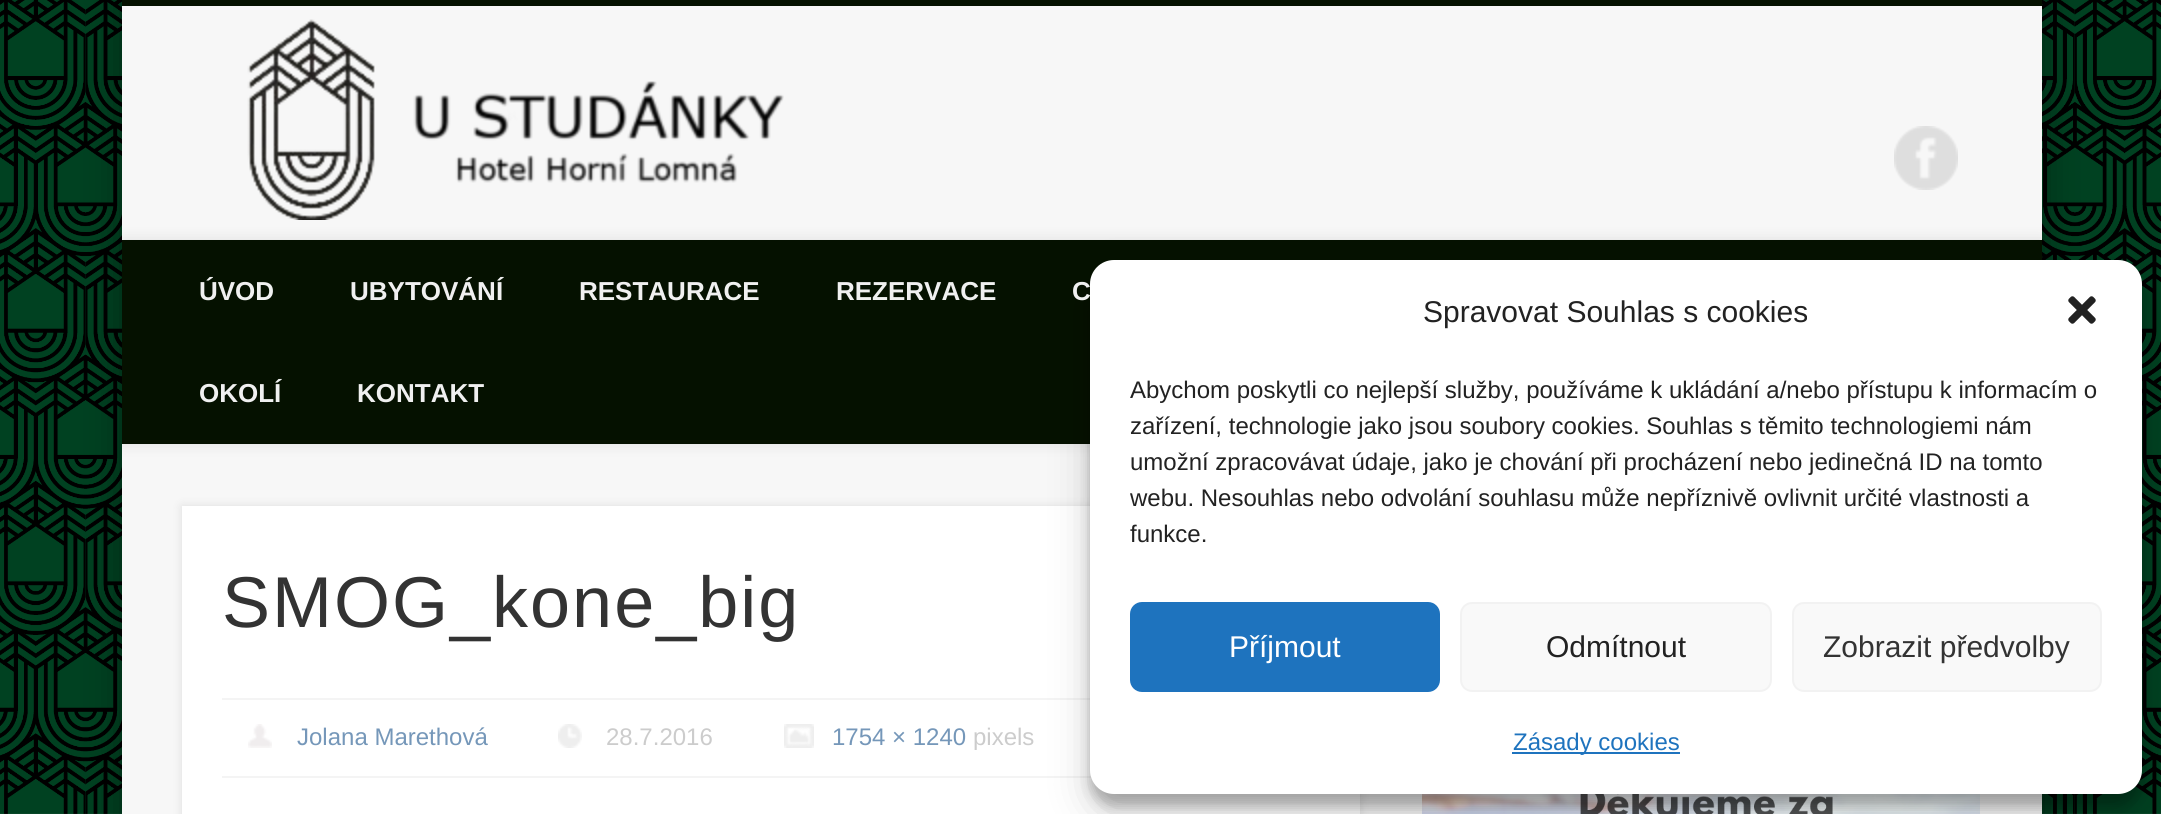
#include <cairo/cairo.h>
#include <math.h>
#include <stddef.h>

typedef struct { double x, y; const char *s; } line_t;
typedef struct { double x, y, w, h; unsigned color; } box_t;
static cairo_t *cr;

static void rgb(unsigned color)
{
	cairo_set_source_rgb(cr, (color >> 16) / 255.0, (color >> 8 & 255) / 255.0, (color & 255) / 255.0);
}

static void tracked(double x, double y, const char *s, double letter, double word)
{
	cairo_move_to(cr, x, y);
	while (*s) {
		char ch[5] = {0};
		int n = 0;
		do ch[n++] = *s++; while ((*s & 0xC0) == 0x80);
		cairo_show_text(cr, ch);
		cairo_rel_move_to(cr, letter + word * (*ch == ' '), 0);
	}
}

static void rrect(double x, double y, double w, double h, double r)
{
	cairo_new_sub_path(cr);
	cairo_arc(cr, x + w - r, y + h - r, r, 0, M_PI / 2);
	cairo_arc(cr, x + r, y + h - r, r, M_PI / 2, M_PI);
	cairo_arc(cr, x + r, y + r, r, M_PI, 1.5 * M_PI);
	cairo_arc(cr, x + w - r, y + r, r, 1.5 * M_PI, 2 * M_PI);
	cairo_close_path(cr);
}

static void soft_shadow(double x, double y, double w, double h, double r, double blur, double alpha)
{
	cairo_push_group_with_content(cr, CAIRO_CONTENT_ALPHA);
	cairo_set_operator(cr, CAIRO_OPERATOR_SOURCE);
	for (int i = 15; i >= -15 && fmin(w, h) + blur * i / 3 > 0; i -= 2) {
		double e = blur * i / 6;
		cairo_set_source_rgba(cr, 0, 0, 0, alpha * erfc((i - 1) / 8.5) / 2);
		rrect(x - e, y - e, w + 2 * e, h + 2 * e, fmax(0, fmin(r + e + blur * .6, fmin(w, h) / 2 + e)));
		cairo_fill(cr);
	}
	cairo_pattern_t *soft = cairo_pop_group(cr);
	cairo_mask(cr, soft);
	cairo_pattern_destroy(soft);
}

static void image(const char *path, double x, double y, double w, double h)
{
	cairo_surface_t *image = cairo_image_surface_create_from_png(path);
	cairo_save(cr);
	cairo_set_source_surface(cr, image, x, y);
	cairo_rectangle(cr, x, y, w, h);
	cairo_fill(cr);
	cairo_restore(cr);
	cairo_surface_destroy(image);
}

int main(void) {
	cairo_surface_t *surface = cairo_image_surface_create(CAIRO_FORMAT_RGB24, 2161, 814);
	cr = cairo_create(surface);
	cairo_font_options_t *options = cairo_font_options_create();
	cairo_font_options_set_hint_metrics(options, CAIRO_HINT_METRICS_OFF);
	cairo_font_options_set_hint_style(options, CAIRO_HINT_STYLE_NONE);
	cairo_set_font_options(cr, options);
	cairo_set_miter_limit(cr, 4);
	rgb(0xffffff);
	cairo_paint(cr);
	image("img/1.png", 0, 0, 2161, 814);
	rgb(0x000000);
	soft_shadow(122, 0, 1920, 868, 0, 18, 0.4);
	rgb(0xf7f7f7);
	cairo_rectangle(cr, 122, 6, 1920, 808);
	cairo_fill(cr);
	rgb(0x051100);
	cairo_rectangle(cr, 122, 0, 1920, 6);
	cairo_fill(cr);
	image("img/2.png", 247, 19, 537, 201);
	image("img/3.png", 1894, 126, 64, 64);
	cairo_save(cr);
	cairo_rectangle(cr, 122, 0, 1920, 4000);
	cairo_clip(cr);
	rgb(0x000000);
	soft_shadow(122, 240, 1920, 204, 0, 7, 0.1);
	cairo_restore(cr);
	cairo_rectangle(cr, 122, 240, 1920, 204);
	cairo_fill(cr);
	rgb(0x000000);
	soft_shadow(182, 506, 1178, 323, 0, 5, 0.1);
	{
		static const box_t items[] = {
			{182, 506, 1178, 308, 0xffffff},
			{222, 698, 868, 2, 0xf4f4f4},
			{222, 776, 870, 2, 0xf4f4f4},
		};
		for (size_t i = 0; i < sizeof items / sizeof *items; i++) {
			rgb(items[i].color);
			cairo_rectangle(cr, items[i].x, items[i].y, items[i].w, items[i].h);
			cairo_fill(cr);
		}
	}
	image("img/4.png", 248, 724, 24, 24);
	image("img/5.png", 558, 724, 24, 24);
	image("img/6.png", 784, 724, 30, 24);
	image("img/7.png", 1422, 794, 558, 20);
	rgb(0x000000);
	soft_shadow(1090, 272, 1052, 534, 24, 6, 0.23);
	soft_shadow(1090, 280, 1052, 534, 24, 20, 0.19);
	cairo_select_font_face(cr, "Liberation Sans", CAIRO_FONT_SLANT_NORMAL, CAIRO_FONT_WEIGHT_BOLD);
	cairo_set_font_size(cr, 26);
	rgb(0xf0f0f0);
	{
		static const line_t items[] = {
			{199, 300, "ÚVOD"},
			{350, 300, "UBYTOVÁNÍ"},
			{579, 300, "RESTAURACE"},
			{836, 300, "REZERVACE"},
			{1072, 300, "C"},
			{199, 402, "OKOLÍ"},
			{357, 402, "KONTAKT"},
		};
		for (size_t i = 0; i < sizeof items / sizeof *items; i++) {
			cairo_move_to(cr, items[i].x, items[i].y);
			cairo_show_text(cr, items[i].s);
		}
	}
	cairo_select_font_face(cr, "Liberation Sans", CAIRO_FONT_SLANT_NORMAL, CAIRO_FONT_WEIGHT_NORMAL);
	cairo_set_font_size(cr, 72);
	rgb(0x333333);
	tracked(222, 627, "SMOG_kone_big", 2, 0);
	cairo_set_font_size(cr, 24);
	rgb(0x7597b9);
	cairo_move_to(cr, 297, 745);
	cairo_show_text(cr, "Jolana Marethová");
	rgb(0xcccccc);
	cairo_move_to(cr, 606, 745);
	cairo_show_text(cr, "28.7.2016");
	rgb(0x7597b9);
	cairo_move_to(cr, 832, 745);
	cairo_show_text(cr, "1754 × 1240");
	rgb(0xcccccc);
	cairo_move_to(cr, 973, 745);
	cairo_show_text(cr, "pixels");
	rgb(0xffffff);
	rrect(1090, 260, 1052, 534, 24);
	cairo_fill(cr);
	cairo_set_font_size(cr, 30);
	rgb(0x222222);
	cairo_move_to(cr, 1423, 322);
	cairo_show_text(cr, "Spravovat Souhlas s cookies");
	image("img/8.png", 2068, 296, 28, 28);
	cairo_set_font_size(cr, 24);
	{
		static const line_t items[] = {
			{1130, 398, "Abychom poskytli co nejlepší služby, používáme k ukládání a/nebo přístupu k informacím o"},
			{1130, 434, "zařízení, technologie jako jsou soubory cookies. Souhlas s těmito technologiemi nám"},
			{1130, 470, "umožní zpracovávat údaje, jako je chování při procházení nebo jedinečná ID na tomto"},
			{1130, 506, "webu. Nesouhlas nebo odvolání souhlasu může nepříznivě ovlivnit určité vlastnosti a"},
			{1130, 542, "funkce."},
		};
		for (size_t i = 0; i < sizeof items / sizeof *items; i++) {
			cairo_move_to(cr, items[i].x, items[i].y);
			cairo_show_text(cr, items[i].s);
		}
	}
	rgb(0x1e73be);
	rrect(1131, 603, 308, 88, 11);
	cairo_fill_preserve(cr);
	cairo_stroke(cr);
	cairo_set_font_size(cr, 30);
	rgb(0xffffff);
	cairo_move_to(cr, 1229, 657);
	cairo_show_text(cr, "Příjmout");
	rgb(0xf9f9f9);
	rrect(1461, 603, 310, 88, 11);
	cairo_fill_preserve(cr);
	rgb(0xf2f2f2);
	cairo_stroke(cr);
	rgb(0x222222);
	cairo_move_to(cr, 1546, 657);
	cairo_show_text(cr, "Odmítnout");
	rgb(0xf9f9f9);
	rrect(1793, 603, 308, 88, 11);
	cairo_fill_preserve(cr);
	rgb(0xf2f2f2);
	cairo_stroke(cr);
	rgb(0x333333);
	cairo_move_to(cr, 1823, 657);
	cairo_show_text(cr, "Zobrazit předvolby");
	rgb(0x1e73be);
	cairo_rectangle(cr, 1512, 752, 168, 2);
	cairo_fill(cr);
	cairo_set_font_size(cr, 24);
	cairo_move_to(cr, 1513, 750);
	cairo_show_text(cr, "Zásady cookies");
	cairo_surface_write_to_png(surface, "page.png");
	cairo_font_options_destroy(options);
	cairo_destroy(cr);
	cairo_surface_destroy(surface);
	return 0;
}
